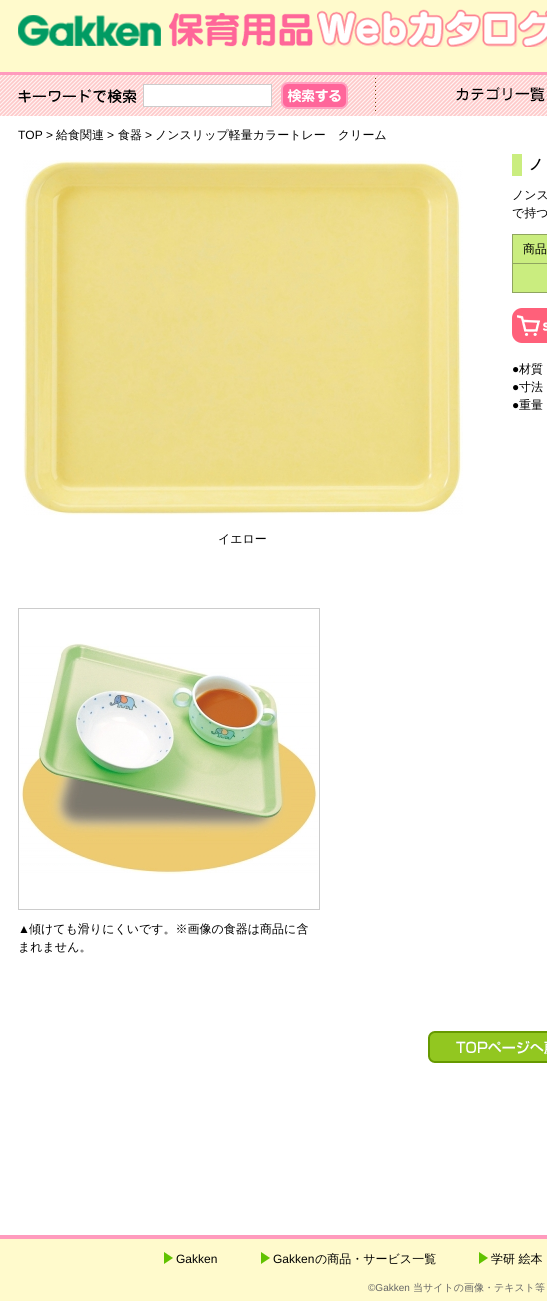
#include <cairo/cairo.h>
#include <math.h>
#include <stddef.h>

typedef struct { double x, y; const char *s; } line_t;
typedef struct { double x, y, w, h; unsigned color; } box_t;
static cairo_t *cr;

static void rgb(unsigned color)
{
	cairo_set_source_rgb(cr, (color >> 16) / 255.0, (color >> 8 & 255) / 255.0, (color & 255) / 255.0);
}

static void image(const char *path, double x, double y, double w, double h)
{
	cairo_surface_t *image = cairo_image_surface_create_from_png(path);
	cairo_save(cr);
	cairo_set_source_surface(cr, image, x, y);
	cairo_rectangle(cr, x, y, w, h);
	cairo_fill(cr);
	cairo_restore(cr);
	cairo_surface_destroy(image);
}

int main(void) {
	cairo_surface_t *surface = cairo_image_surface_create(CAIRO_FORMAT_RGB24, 547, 1301);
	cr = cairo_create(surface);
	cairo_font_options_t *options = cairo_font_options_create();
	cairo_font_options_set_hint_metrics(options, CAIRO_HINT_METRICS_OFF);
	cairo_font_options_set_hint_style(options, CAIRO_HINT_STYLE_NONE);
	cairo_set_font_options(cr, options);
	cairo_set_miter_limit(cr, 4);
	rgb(0xffffff);
	cairo_paint(cr);
	rgb(0xfffacc);
	cairo_rectangle(cr, 0, 0, 547, 72);
	cairo_fill(cr);
	image("img/1.png", 18, 9, 529, 38);
	image("img/2.png", 0, 75, 375, 41);
	rgb(0xff9bbd);
	cairo_rectangle(cr, 0, 72, 547, 3);
	cairo_fill(cr);
	image("img/3.png", 18, 89, 119, 15);
	rgb(0xffffff);
	cairo_rectangle(cr, 143.5, 84.5, 128, 22);
	cairo_fill_preserve(cr);
	rgb(0xcccccc);
	cairo_set_line_width(cr, 1);
	cairo_stroke(cr);
	image("img/4.png", 281, 82, 67, 27);
	image("img/5.png", 375, 75, 172, 41);
	image("img/6.png", 379, 78, 168, 34);
	{
		static const box_t items[] = {
			{512, 154, 10, 22, 0xcaed7f},
			{512, 234, 35, 1, 0x8fa55f},
			{512, 234, 1, 59, 0x8fa55f},
			{513, 235, 34, 28, 0xcaed7f},
			{512, 263, 35, 1, 0x8fa55f},
			{513, 264, 34, 28, 0xcaed7f},
			{512, 292, 35, 1, 0x8fa55f},
		};
		for (size_t i = 0; i < sizeof items / sizeof *items; i++) {
			rgb(items[i].color);
			cairo_rectangle(cr, items[i].x, items[i].y, items[i].w, items[i].h);
			cairo_fill(cr);
		}
	}
	image("img/7.png", 512, 308, 35, 35);
	image("img/8.png", 23, 160, 440, 355);
	cairo_rectangle(cr, 18.5, 608.5, 301, 301);
	rgb(0xcccccc);
	cairo_stroke(cr);
	image("img/9.png", 20, 643, 298, 231);
	image("img/10.png", 428, 1031, 119, 32);
	rgb(0xfffacc);
	cairo_rectangle(cr, 0, 1239, 547, 62);
	cairo_fill(cr);
	rgb(0xff9bbd);
	cairo_rectangle(cr, 0, 1235, 547, 4);
	cairo_fill(cr);
	rgb(0x61c201);
	cairo_new_path(cr);
	cairo_move_to(cr, 173, 1258);
	cairo_line_to(cr, 164, 1252);
	cairo_line_to(cr, 164, 1264);
	cairo_close_path(cr);
	cairo_fill(cr);
	cairo_new_path(cr);
	cairo_move_to(cr, 270, 1258);
	cairo_line_to(cr, 261, 1252);
	cairo_line_to(cr, 261, 1264);
	cairo_close_path(cr);
	cairo_fill(cr);
	cairo_new_path(cr);
	cairo_move_to(cr, 488, 1258);
	cairo_line_to(cr, 479, 1252);
	cairo_line_to(cr, 479, 1264);
	cairo_close_path(cr);
	cairo_fill(cr);
	cairo_select_font_face(cr, "Liberation Sans", CAIRO_FONT_SLANT_NORMAL, CAIRO_FONT_WEIGHT_NORMAL);
	cairo_set_font_size(cr, 12);
	rgb(0x000000);
	cairo_move_to(cr, 18, 139);
	cairo_show_text(cr, "TOP >");
	cairo_select_font_face(cr, "WenQuanYi Zen Hei Medium", CAIRO_FONT_SLANT_NORMAL, CAIRO_FONT_WEIGHT_NORMAL);
	cairo_move_to(cr, 56, 139);
	cairo_show_text(cr, "給食関連");
	cairo_select_font_face(cr, "Liberation Sans", CAIRO_FONT_SLANT_NORMAL, CAIRO_FONT_WEIGHT_NORMAL);
	cairo_move_to(cr, 107, 139);
	cairo_show_text(cr, ">");
	cairo_select_font_face(cr, "WenQuanYi Zen Hei Medium", CAIRO_FONT_SLANT_NORMAL, CAIRO_FONT_WEIGHT_NORMAL);
	cairo_move_to(cr, 118, 139);
	cairo_show_text(cr, "食器");
	cairo_select_font_face(cr, "Liberation Sans", CAIRO_FONT_SLANT_NORMAL, CAIRO_FONT_WEIGHT_NORMAL);
	cairo_move_to(cr, 145, 139);
	cairo_show_text(cr, ">");
	cairo_select_font_face(cr, "WenQuanYi Zen Hei Medium", CAIRO_FONT_SLANT_NORMAL, CAIRO_FONT_WEIGHT_NORMAL);
	cairo_move_to(cr, 155, 139);
	cairo_show_text(cr, "ノンスリップ軽量カラートレー　クリーム");
	cairo_select_font_face(cr, "WenQuanYi Zen Hei", CAIRO_FONT_SLANT_NORMAL, CAIRO_FONT_WEIGHT_BOLD);
	cairo_set_font_size(cr, 14);
	cairo_move_to(cr, 529, 169);
	cairo_show_text(cr, "ノ");
	cairo_select_font_face(cr, "WenQuanYi Zen Hei Medium", CAIRO_FONT_SLANT_NORMAL, CAIRO_FONT_WEIGHT_NORMAL);
	cairo_set_font_size(cr, 12);
	{
		static const line_t items[] = {
			{512, 199, "ノンス"},
			{512, 217, "で持つ"},
			{523, 253, "商品"},
		};
		for (size_t i = 0; i < sizeof items / sizeof *items; i++) {
			cairo_move_to(cr, items[i].x, items[i].y);
			cairo_show_text(cr, items[i].s);
		}
	}
	cairo_select_font_face(cr, "Liberation Sans", CAIRO_FONT_SLANT_NORMAL, CAIRO_FONT_WEIGHT_NORMAL);
	cairo_move_to(cr, 512, 373);
	cairo_show_text(cr, "●");
	cairo_select_font_face(cr, "WenQuanYi Zen Hei Medium", CAIRO_FONT_SLANT_NORMAL, CAIRO_FONT_WEIGHT_NORMAL);
	cairo_move_to(cr, 519, 373);
	cairo_show_text(cr, "材質");
	cairo_select_font_face(cr, "Liberation Sans", CAIRO_FONT_SLANT_NORMAL, CAIRO_FONT_WEIGHT_NORMAL);
	cairo_move_to(cr, 512, 391);
	cairo_show_text(cr, "●");
	cairo_select_font_face(cr, "WenQuanYi Zen Hei Medium", CAIRO_FONT_SLANT_NORMAL, CAIRO_FONT_WEIGHT_NORMAL);
	cairo_move_to(cr, 519, 391);
	cairo_show_text(cr, "寸法");
	cairo_select_font_face(cr, "Liberation Sans", CAIRO_FONT_SLANT_NORMAL, CAIRO_FONT_WEIGHT_NORMAL);
	cairo_move_to(cr, 512, 409);
	cairo_show_text(cr, "●");
	cairo_select_font_face(cr, "WenQuanYi Zen Hei Medium", CAIRO_FONT_SLANT_NORMAL, CAIRO_FONT_WEIGHT_NORMAL);
	cairo_move_to(cr, 519, 409);
	cairo_show_text(cr, "重量");
	cairo_move_to(cr, 218, 543);
	cairo_show_text(cr, "イエロー");
	cairo_select_font_face(cr, "Liberation Sans", CAIRO_FONT_SLANT_NORMAL, CAIRO_FONT_WEIGHT_NORMAL);
	cairo_move_to(cr, 18, 933);
	cairo_show_text(cr, "▲");
	cairo_select_font_face(cr, "WenQuanYi Zen Hei Medium", CAIRO_FONT_SLANT_NORMAL, CAIRO_FONT_WEIGHT_NORMAL);
	cairo_move_to(cr, 29, 933);
	cairo_show_text(cr, "傾けても滑りにくいです。※画像の食器は商品に含");
	cairo_move_to(cr, 18, 951);
	cairo_show_text(cr, "まれません。");
	cairo_select_font_face(cr, "Liberation Sans", CAIRO_FONT_SLANT_NORMAL, CAIRO_FONT_WEIGHT_NORMAL);
	cairo_move_to(cr, 176, 1263);
	cairo_show_text(cr, "Gakken");
	cairo_move_to(cr, 273, 1263);
	cairo_show_text(cr, "Gakken");
	cairo_select_font_face(cr, "WenQuanYi Zen Hei Medium", CAIRO_FONT_SLANT_NORMAL, CAIRO_FONT_WEIGHT_NORMAL);
	cairo_move_to(cr, 315, 1263);
	cairo_show_text(cr, "の商品・サービス一覧");
	cairo_move_to(cr, 491, 1263);
	cairo_show_text(cr, "学研 絵本");
	cairo_select_font_face(cr, "Liberation Sans", CAIRO_FONT_SLANT_NORMAL, CAIRO_FONT_WEIGHT_NORMAL);
	cairo_set_font_size(cr, 10);
	rgb(0x666666);
	cairo_move_to(cr, 368, 1291);
	cairo_show_text(cr, "©Gakken");
	cairo_select_font_face(cr, "WenQuanYi Zen Hei Medium", CAIRO_FONT_SLANT_NORMAL, CAIRO_FONT_WEIGHT_NORMAL);
	cairo_move_to(cr, 413, 1291);
	cairo_show_text(cr, "当サイトの画像・テキスト等");
	cairo_surface_write_to_png(surface, "page.png");
	cairo_font_options_destroy(options);
	cairo_destroy(cr);
	cairo_surface_destroy(surface);
	return 0;
}
